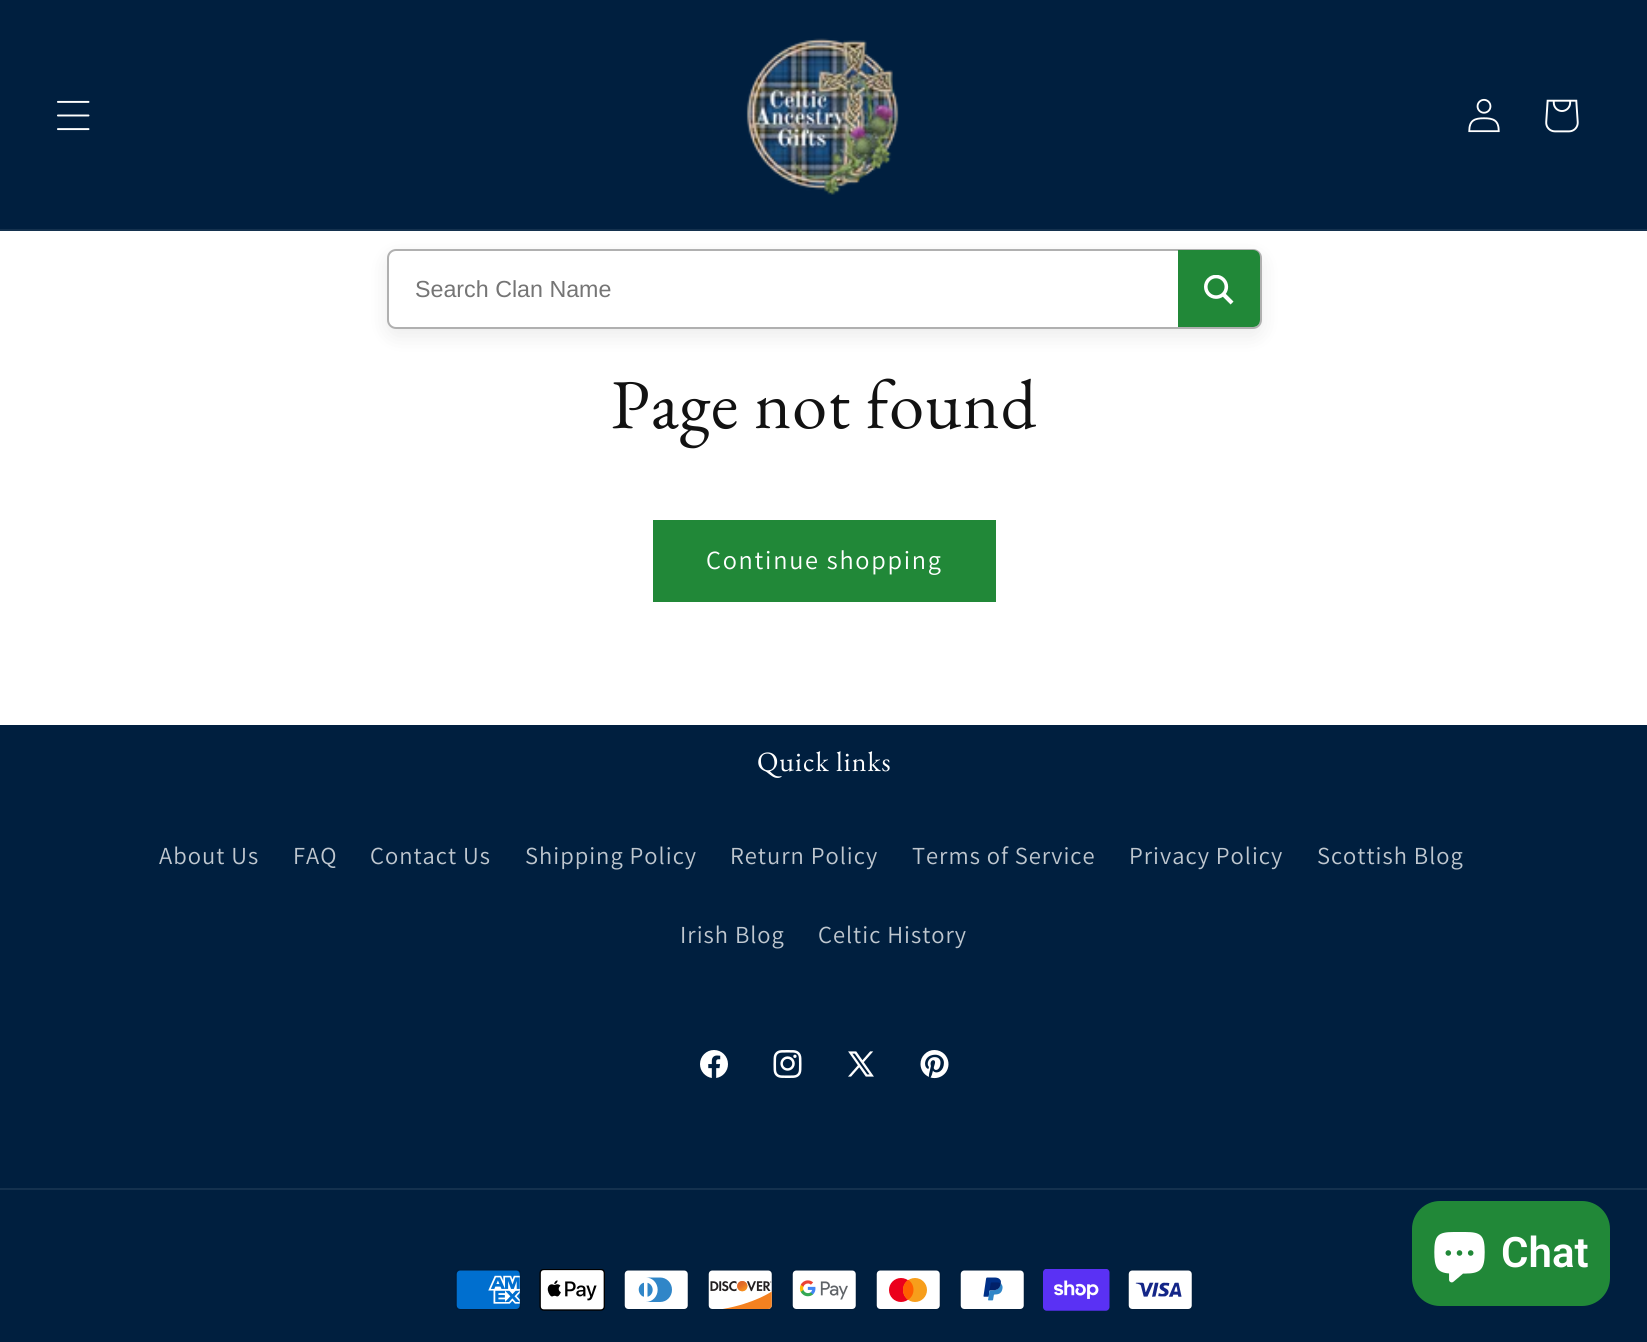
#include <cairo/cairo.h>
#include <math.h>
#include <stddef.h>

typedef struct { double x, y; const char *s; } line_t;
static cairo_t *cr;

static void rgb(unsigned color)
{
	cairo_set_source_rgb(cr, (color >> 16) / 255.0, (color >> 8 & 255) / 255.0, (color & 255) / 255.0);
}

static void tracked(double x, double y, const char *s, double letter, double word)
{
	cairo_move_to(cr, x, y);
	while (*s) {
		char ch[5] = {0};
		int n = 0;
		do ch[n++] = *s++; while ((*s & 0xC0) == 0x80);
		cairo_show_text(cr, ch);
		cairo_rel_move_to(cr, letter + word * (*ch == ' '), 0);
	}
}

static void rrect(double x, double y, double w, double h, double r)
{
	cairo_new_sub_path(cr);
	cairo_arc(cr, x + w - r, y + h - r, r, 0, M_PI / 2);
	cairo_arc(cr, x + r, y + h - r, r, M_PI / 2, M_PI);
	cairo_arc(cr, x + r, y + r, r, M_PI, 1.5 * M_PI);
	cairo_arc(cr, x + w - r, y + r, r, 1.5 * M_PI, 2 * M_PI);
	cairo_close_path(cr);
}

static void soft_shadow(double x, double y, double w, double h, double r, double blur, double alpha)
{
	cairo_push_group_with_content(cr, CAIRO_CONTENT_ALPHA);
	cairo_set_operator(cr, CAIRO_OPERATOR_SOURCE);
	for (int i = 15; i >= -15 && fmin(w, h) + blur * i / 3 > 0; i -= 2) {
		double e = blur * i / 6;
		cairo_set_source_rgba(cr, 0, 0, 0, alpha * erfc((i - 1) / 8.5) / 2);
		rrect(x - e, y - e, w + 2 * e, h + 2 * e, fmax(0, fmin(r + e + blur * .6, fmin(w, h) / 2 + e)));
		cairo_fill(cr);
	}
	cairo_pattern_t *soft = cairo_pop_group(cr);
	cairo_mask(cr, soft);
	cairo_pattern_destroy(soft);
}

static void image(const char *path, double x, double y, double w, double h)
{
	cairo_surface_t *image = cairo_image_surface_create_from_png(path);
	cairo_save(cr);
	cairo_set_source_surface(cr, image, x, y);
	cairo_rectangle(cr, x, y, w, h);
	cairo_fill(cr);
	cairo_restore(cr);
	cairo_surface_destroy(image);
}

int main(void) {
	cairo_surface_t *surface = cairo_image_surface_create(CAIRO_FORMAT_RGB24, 1647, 1342);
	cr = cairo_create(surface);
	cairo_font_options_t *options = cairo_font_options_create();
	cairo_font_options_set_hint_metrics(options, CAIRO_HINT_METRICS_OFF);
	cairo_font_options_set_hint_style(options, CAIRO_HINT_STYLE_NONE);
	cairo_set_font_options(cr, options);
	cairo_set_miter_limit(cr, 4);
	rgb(0xffffff);
	cairo_paint(cr);
	rgb(0x001f3f);
	cairo_rectangle(cr, 0, 0, 1647, 229);
	cairo_fill(cr);
	rgb(0x14314e);
	cairo_rectangle(cr, 0, 229, 1647, 2);
	cairo_fill(cr);
	image("img/1.png", 57, 100, 33, 31);
	image("img/2.png", 746, 38, 153, 157);
	image("img/3.png", 1468, 98, 32, 35);
	image("img/4.png", 1545, 99, 34, 34);
	rgb(0x000000);
	soft_shadow(387, 256, 875, 80, 9, 10.5, 0.08);
	rgb(0xffffff);
	rrect(388, 250, 873, 78, 8);
	cairo_fill_preserve(cr);
	rgb(0xb0b0b0);
	cairo_stroke(cr);
	rgb(0x218838);
	cairo_new_path(cr);
	cairo_move_to(cr, 1178, 250);
	cairo_line_to(cr, 1253, 250);
	cairo_curve_to(cr, 1257, 250, 1260, 253, 1260, 257);
	cairo_line_to(cr, 1260, 320);
	cairo_curve_to(cr, 1260, 324, 1257, 327, 1253, 327);
	cairo_line_to(cr, 1178, 327);
	cairo_close_path(cr);
	cairo_fill(cr);
	image("img/5.png", 1204, 275, 30, 30);
	cairo_rectangle(cr, 653, 520, 343, 82);
	cairo_fill(cr);
	rgb(0x001f3f);
	cairo_rectangle(cr, 0, 725, 1647, 617);
	cairo_fill(cr);
	image("img/6.png", 700, 1050, 28, 28);
	image("img/7.png", 773, 1050, 29, 28);
	image("img/8.png", 848, 1051, 26, 26);
	image("img/9.png", 920, 1050, 29, 29);
	rgb(0x14314e);
	cairo_rectangle(cr, 0, 1188, 1647, 2);
	cairo_fill(cr);
	image("img/10.png", 455, 1269, 66, 41);
	image("img/11.png", 539, 1269, 66, 42);
	image("img/12.png", 623, 1269, 66, 41);
	image("img/13.png", 707, 1269, 66, 41);
	image("img/14.png", 791, 1269, 66, 41);
	image("img/15.png", 875, 1269, 66, 41);
	image("img/16.png", 959, 1269, 66, 41);
	image("img/17.png", 1043, 1269, 67, 42);
	image("img/18.png", 1127, 1269, 66, 41);
	rgb(0x218838);
	rrect(1412, 1201, 198, 105, 28);
	cairo_fill(cr);
	image("img/19.png", 1434, 1232, 51, 51);
	cairo_select_font_face(cr, "Liberation Sans", CAIRO_FONT_SLANT_NORMAL, CAIRO_FONT_WEIGHT_NORMAL);
	cairo_set_font_size(cr, 23.25);
	rgb(0x757575);
	cairo_move_to(cr, 415, 297);
	cairo_show_text(cr, "Search Clan Name");
	cairo_select_font_face(cr, "EB Garamond", CAIRO_FONT_SLANT_NORMAL, CAIRO_FONT_WEIGHT_NORMAL);
	cairo_set_font_size(cr, 70);
	rgb(0x121212);
	tracked(611, 428, "Page not found", 1, 0);
	cairo_select_font_face(cr, "Assistant", CAIRO_FONT_SLANT_NORMAL, CAIRO_FONT_WEIGHT_NORMAL);
	cairo_set_font_size(cr, 26.25);
	rgb(0xffffff);
	tracked(706, 569, "Continue shopping", 1.75, 0);
	cairo_select_font_face(cr, "EB Garamond", CAIRO_FONT_SLANT_NORMAL, CAIRO_FONT_WEIGHT_NORMAL);
	cairo_set_font_size(cr, 28);
	tracked(757, 771, "Quick links", 1, 0);
	cairo_select_font_face(cr, "Assistant", CAIRO_FONT_SLANT_NORMAL, CAIRO_FONT_WEIGHT_NORMAL);
	cairo_set_font_size(cr, 24.5);
	rgb(0xbfc7cf);
	{
		static const line_t items[] = {
			{159, 864, "About Us"},
			{293, 864, "FAQ"},
			{370, 864, "Contact Us"},
			{525, 864, "Shipping Policy"},
			{730, 864, "Return Policy"},
			{912, 864, "Terms of Service"},
			{1129, 864, "Privacy Policy"},
			{1317, 864, "Scottish Blog"},
			{680, 943, "Irish Blog"},
			{818, 943, "Celtic History"},
		};
		for (size_t i = 0; i < sizeof items / sizeof *items; i++) {
			tracked(items[i].x, items[i].y, items[i].s, 1, 0);
		}
	}
	cairo_select_font_face(cr, "Roboto SemiBold", CAIRO_FONT_SLANT_NORMAL, CAIRO_FONT_WEIGHT_NORMAL);
	cairo_set_font_size(cr, 42);
	rgb(0xffffff);
	cairo_move_to(cr, 1501, 1267);
	cairo_show_text(cr, "Chat");
	cairo_surface_write_to_png(surface, "page.png");
	cairo_font_options_destroy(options);
	cairo_destroy(cr);
	cairo_surface_destroy(surface);
	return 0;
}
